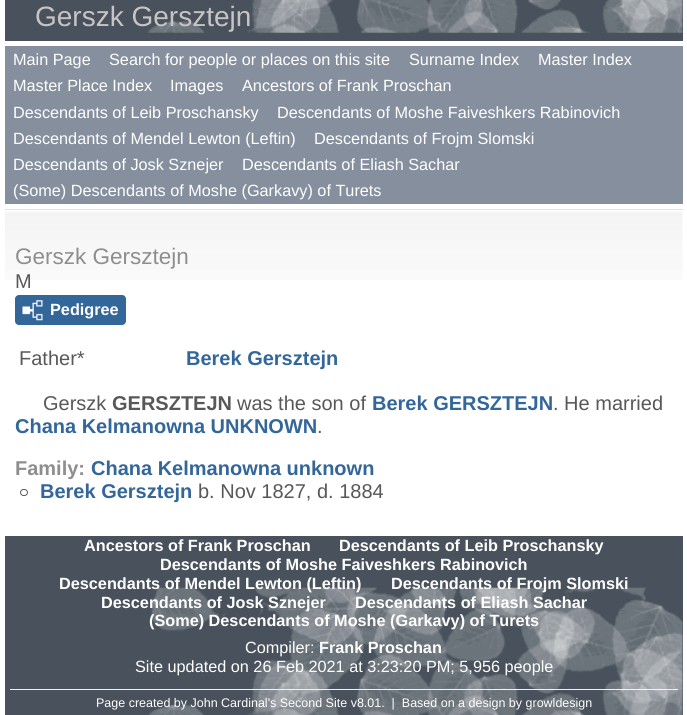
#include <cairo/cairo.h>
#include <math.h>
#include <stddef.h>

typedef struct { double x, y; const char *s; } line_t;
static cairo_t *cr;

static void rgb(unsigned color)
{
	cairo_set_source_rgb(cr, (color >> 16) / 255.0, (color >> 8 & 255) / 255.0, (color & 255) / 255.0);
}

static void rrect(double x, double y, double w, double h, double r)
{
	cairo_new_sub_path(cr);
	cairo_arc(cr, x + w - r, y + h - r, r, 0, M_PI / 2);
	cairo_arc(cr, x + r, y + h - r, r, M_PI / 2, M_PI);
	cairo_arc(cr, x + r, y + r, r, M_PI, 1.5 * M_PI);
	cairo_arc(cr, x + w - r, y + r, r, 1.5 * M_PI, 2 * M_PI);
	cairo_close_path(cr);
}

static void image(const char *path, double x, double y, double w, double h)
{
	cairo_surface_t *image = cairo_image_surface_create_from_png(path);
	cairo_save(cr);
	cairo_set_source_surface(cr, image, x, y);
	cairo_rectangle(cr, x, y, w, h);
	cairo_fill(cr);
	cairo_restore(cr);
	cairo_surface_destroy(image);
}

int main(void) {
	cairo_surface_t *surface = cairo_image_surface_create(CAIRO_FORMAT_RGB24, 687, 715);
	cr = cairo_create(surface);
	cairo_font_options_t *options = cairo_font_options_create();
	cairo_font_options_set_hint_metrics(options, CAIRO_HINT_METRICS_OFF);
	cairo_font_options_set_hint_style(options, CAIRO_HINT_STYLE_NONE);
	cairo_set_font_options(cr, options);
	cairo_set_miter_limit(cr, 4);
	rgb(0xffffff);
	cairo_paint(cr);
	rgb(0x49515c);
	cairo_rectangle(cr, 5, 0, 678, 41);
	cairo_fill(cr);
	image("img/1.png", 147, 0, 536, 33);
	rgb(0x858f9e);
	cairo_rectangle(cr, 5, 46, 678, 158);
	cairo_fill(cr);
	image("img/2.png", 5, 211, 678, 69);
	rgb(0xe1e1e1);
	cairo_rectangle(cr, 5, 209, 678, 1);
	cairo_fill(cr);
	rgb(0x336699);
	rrect(15, 295, 111, 30, 4);
	cairo_fill(cr);
	image("img/3.png", 22, 300, 21, 21);
	rrect(20.5, 489.5, 7, 6, 3);
	rgb(0x585858);
	cairo_set_line_width(cr, 1);
	cairo_stroke(cr);
	rgb(0x49515c);
	cairo_rectangle(cr, 5, 536, 678, 179);
	cairo_fill(cr);
	image("img/4.png", 149, 587, 534, 128);
	rgb(0xf1f1f1);
	cairo_rectangle(cr, 10, 689, 668, 1);
	cairo_fill(cr);
	cairo_select_font_face(cr, "Liberation Sans", CAIRO_FONT_SLANT_NORMAL, CAIRO_FONT_WEIGHT_NORMAL);
	cairo_set_font_size(cr, 28);
	rgb(0xc6c4c5);
	cairo_move_to(cr, 35, 26);
	cairo_show_text(cr, "Gerszk Gersztejn");
	cairo_set_font_size(cr, 16.25);
	rgb(0xffffff);
	{
		static const line_t items[] = {
			{13, 65, "Main Page"},
			{109, 65, "Search for people or places on this site"},
			{409, 65, "Surname Index"},
			{538, 65, "Master Index"},
			{13, 91, "Master Place Index"},
			{170, 91, "Images"},
			{242, 91, "Ancestors of Frank Proschan"},
			{13, 118, "Descendants of Leib Proschansky"},
			{277, 118, "Descendants of Moshe Faiveshkers Rabinovich"},
			{13, 144, "Descendants of Mendel Lewton (Leftin)"},
			{314, 144, "Descendants of Frojm Slomski"},
			{13, 170, "Descendants of Josk Sznejer"},
			{242, 170, "Descendants of Eliash Sachar"},
			{13, 196, "(Some) Descendants of Moshe (Garkavy) of Turets"},
		};
		for (size_t i = 0; i < sizeof items / sizeof *items; i++) {
			cairo_move_to(cr, items[i].x, items[i].y);
			cairo_show_text(cr, items[i].s);
		}
	}
	cairo_set_font_size(cr, 22.5);
	rgb(0x8d8e90);
	cairo_move_to(cr, 15, 264);
	cairo_show_text(cr, "Gerszk Gersztejn");
	cairo_set_font_size(cr, 20);
	rgb(0x585858);
	cairo_move_to(cr, 15, 288);
	cairo_show_text(cr, "M");
	cairo_select_font_face(cr, "Liberation Sans", CAIRO_FONT_SLANT_NORMAL, CAIRO_FONT_WEIGHT_BOLD);
	cairo_set_font_size(cr, 16.25);
	rgb(0xffffff);
	cairo_move_to(cr, 50, 315);
	cairo_show_text(cr, "Pedigree");
	cairo_select_font_face(cr, "Liberation Sans", CAIRO_FONT_SLANT_NORMAL, CAIRO_FONT_WEIGHT_NORMAL);
	cairo_set_font_size(cr, 20);
	rgb(0x585858);
	cairo_move_to(cr, 19, 365);
	cairo_show_text(cr, "Father*");
	cairo_select_font_face(cr, "Liberation Sans", CAIRO_FONT_SLANT_NORMAL, CAIRO_FONT_WEIGHT_BOLD);
	rgb(0x336699);
	cairo_move_to(cr, 186, 365);
	cairo_show_text(cr, "Berek Gersztejn");
	cairo_select_font_face(cr, "Liberation Sans", CAIRO_FONT_SLANT_NORMAL, CAIRO_FONT_WEIGHT_NORMAL);
	rgb(0x585858);
	cairo_move_to(cr, 43, 410);
	cairo_show_text(cr, "Gerszk");
	cairo_select_font_face(cr, "Liberation Sans", CAIRO_FONT_SLANT_NORMAL, CAIRO_FONT_WEIGHT_BOLD);
	cairo_move_to(cr, 112, 410);
	cairo_show_text(cr, "GERSZTEJN");
	cairo_select_font_face(cr, "Liberation Sans", CAIRO_FONT_SLANT_NORMAL, CAIRO_FONT_WEIGHT_NORMAL);
	cairo_move_to(cr, 237, 410);
	cairo_show_text(cr, "was the son of");
	cairo_select_font_face(cr, "Liberation Sans", CAIRO_FONT_SLANT_NORMAL, CAIRO_FONT_WEIGHT_BOLD);
	rgb(0x336699);
	cairo_move_to(cr, 372, 410);
	cairo_show_text(cr, "Berek GERSZTEJN");
	cairo_select_font_face(cr, "Liberation Sans", CAIRO_FONT_SLANT_NORMAL, CAIRO_FONT_WEIGHT_NORMAL);
	rgb(0x585858);
	cairo_move_to(cr, 553, 410);
	cairo_show_text(cr, ". He married");
	cairo_select_font_face(cr, "Liberation Sans", CAIRO_FONT_SLANT_NORMAL, CAIRO_FONT_WEIGHT_BOLD);
	rgb(0x336699);
	cairo_move_to(cr, 15, 433);
	cairo_show_text(cr, "Chana Kelmanowna UNKNOWN");
	cairo_select_font_face(cr, "Liberation Sans", CAIRO_FONT_SLANT_NORMAL, CAIRO_FONT_WEIGHT_NORMAL);
	rgb(0x585858);
	cairo_move_to(cr, 317, 433);
	cairo_show_text(cr, ".");
	cairo_select_font_face(cr, "Liberation Sans", CAIRO_FONT_SLANT_NORMAL, CAIRO_FONT_WEIGHT_BOLD);
	rgb(0x8d8e90);
	cairo_move_to(cr, 15, 475);
	cairo_show_text(cr, "Family:");
	rgb(0x336699);
	cairo_move_to(cr, 91, 475);
	cairo_show_text(cr, "Chana Kelmanowna unknown");
	cairo_move_to(cr, 40, 498);
	cairo_show_text(cr, "Berek Gersztejn");
	cairo_select_font_face(cr, "Liberation Sans", CAIRO_FONT_SLANT_NORMAL, CAIRO_FONT_WEIGHT_NORMAL);
	rgb(0x585858);
	cairo_move_to(cr, 198, 498);
	cairo_show_text(cr, "b. Nov 1827, d. 1884");
	cairo_select_font_face(cr, "Liberation Sans", CAIRO_FONT_SLANT_NORMAL, CAIRO_FONT_WEIGHT_BOLD);
	cairo_set_font_size(cr, 16.25);
	rgb(0xffffff);
	{
		static const line_t items[] = {
			{84, 551, "Ancestors of Frank Proschan"},
			{339, 551, "Descendants of Leib Proschansky"},
			{160, 570, "Descendants of Moshe Faiveshkers Rabinovich"},
			{59, 589, "Descendants of Mendel Lewton (Leftin)"},
			{391, 589, "Descendants of Frojm Slomski"},
			{101, 608, "Descendants of Josk Sznejer"},
			{355, 608, "Descendants of Eliash Sachar"},
			{149, 626, "(Some) Descendants of Moshe (Garkavy) of Turets"},
		};
		for (size_t i = 0; i < sizeof items / sizeof *items; i++) {
			cairo_move_to(cr, items[i].x, items[i].y);
			cairo_show_text(cr, items[i].s);
		}
	}
	cairo_select_font_face(cr, "Liberation Sans", CAIRO_FONT_SLANT_NORMAL, CAIRO_FONT_WEIGHT_NORMAL);
	cairo_move_to(cr, 245, 653);
	cairo_show_text(cr, "Compiler:");
	cairo_select_font_face(cr, "Liberation Sans", CAIRO_FONT_SLANT_NORMAL, CAIRO_FONT_WEIGHT_BOLD);
	cairo_move_to(cr, 319, 653);
	cairo_show_text(cr, "Frank Proschan");
	cairo_select_font_face(cr, "Liberation Sans", CAIRO_FONT_SLANT_NORMAL, CAIRO_FONT_WEIGHT_NORMAL);
	cairo_move_to(cr, 135, 672);
	cairo_show_text(cr, "Site updated on 26 Feb 2021 at 3:23:20 PM; 5,956 people");
	cairo_set_font_size(cr, 12.5);
	cairo_move_to(cr, 96, 707);
	cairo_show_text(cr, "Page created by John Cardinal's Second Site v8.01.  |  Based on a design by growldesign");
	cairo_surface_write_to_png(surface, "page.png");
	cairo_font_options_destroy(options);
	cairo_destroy(cr);
	cairo_surface_destroy(surface);
	return 0;
}
